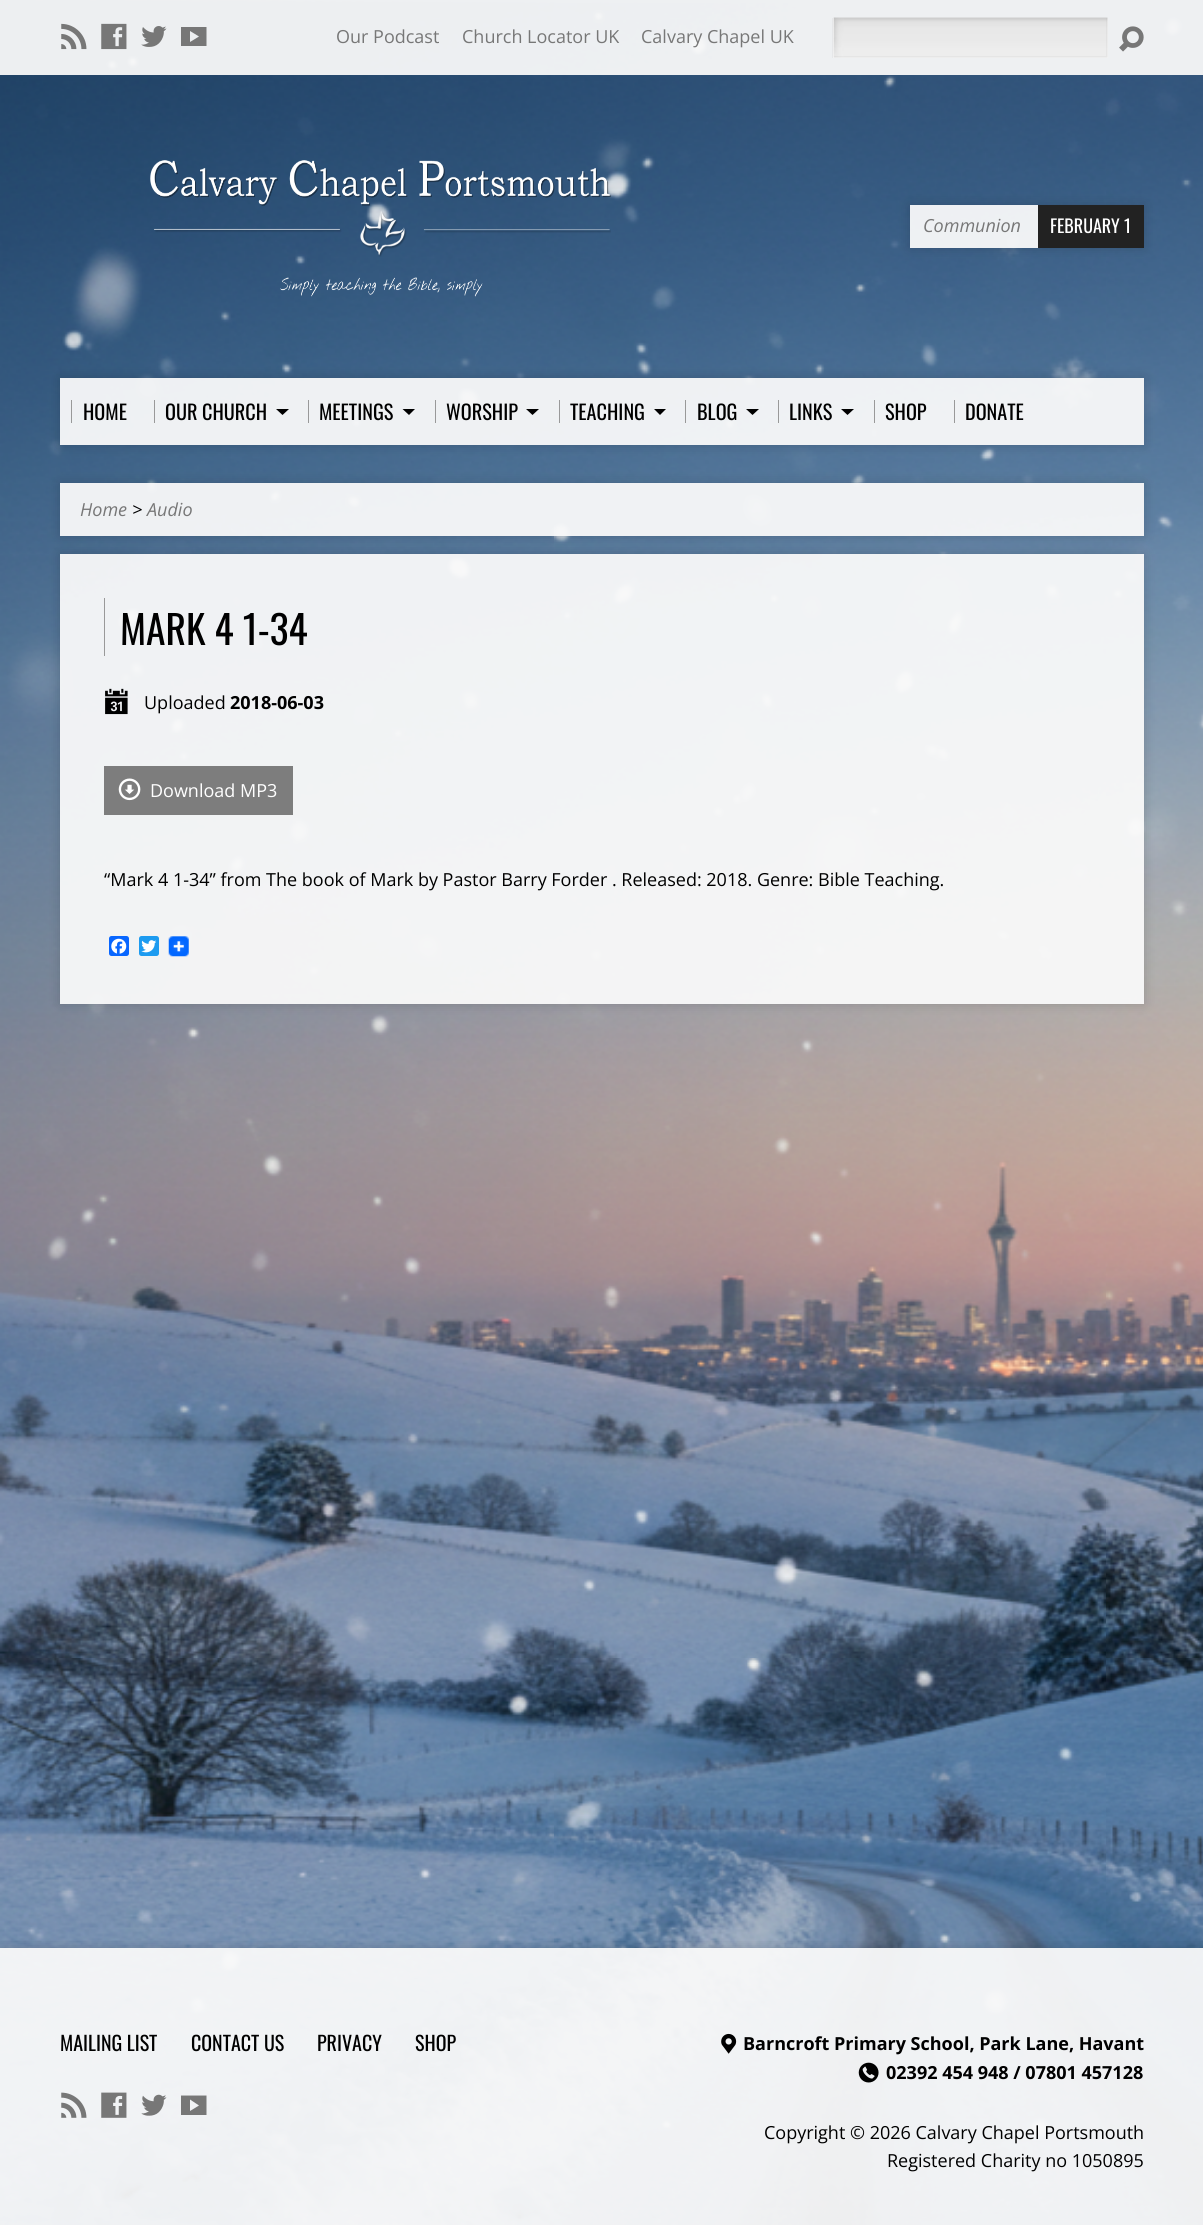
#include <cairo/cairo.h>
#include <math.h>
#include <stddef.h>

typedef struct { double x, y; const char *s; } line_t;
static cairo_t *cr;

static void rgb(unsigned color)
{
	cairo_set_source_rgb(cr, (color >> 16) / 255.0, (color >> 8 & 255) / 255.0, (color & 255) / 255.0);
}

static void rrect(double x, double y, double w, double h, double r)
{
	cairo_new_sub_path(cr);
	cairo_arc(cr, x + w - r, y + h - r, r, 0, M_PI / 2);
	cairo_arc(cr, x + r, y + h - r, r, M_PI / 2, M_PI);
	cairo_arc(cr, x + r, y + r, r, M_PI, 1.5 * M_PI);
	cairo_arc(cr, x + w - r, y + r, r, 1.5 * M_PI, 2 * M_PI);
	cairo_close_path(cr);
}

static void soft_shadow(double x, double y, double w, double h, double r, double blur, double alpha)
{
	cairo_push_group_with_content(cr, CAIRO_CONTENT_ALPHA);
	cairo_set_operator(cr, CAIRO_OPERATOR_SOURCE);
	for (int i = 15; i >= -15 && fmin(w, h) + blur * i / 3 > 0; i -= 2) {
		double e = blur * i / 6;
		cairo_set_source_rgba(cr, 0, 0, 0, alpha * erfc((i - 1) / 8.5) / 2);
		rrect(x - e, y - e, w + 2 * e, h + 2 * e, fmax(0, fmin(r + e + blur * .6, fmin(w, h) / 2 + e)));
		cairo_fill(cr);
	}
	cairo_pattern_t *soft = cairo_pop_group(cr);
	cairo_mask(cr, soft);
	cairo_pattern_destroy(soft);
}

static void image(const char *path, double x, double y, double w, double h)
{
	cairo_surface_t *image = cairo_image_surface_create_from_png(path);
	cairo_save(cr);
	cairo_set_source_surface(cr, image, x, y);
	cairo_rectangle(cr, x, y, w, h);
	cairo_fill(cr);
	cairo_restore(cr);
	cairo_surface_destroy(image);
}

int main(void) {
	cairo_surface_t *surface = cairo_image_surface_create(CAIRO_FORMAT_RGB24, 1203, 2225);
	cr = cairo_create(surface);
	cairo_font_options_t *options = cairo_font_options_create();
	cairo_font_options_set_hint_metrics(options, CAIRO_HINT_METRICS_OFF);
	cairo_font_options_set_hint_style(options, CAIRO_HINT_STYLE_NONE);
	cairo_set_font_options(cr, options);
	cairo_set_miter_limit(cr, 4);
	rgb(0xffffff);
	cairo_paint(cr);
	image("img/1.png", 0, 0, 1203, 2225);
	cairo_set_source_rgba(cr, 0.98, 0.98, 0.98, 0.94);
	cairo_rectangle(cr, 0, 0, 1203, 75);
	cairo_fill(cr);
	image("img/2.png", 61, 23, 26, 27);
	image("img/3.png", 101, 23, 26, 27);
	image("img/4.png", 141, 26, 26, 21);
	rgb(0x777777);
	cairo_new_path(cr);
	cairo_move_to(cr, 206.5, 46);
	cairo_line_to(cr, 181, 46);
	cairo_line_to(cr, 181, 27);
	cairo_line_to(cr, 206.5, 27);
	cairo_close_path(cr);
	cairo_move_to(cr, 190, 42);
	cairo_line_to(cr, 199, 36.5);
	cairo_line_to(cr, 190, 31);
	cairo_close_path(cr);
	cairo_fill(cr);
	rgb(0xffffff);
	cairo_rectangle(cr, 833, 18, 275, 40);
	cairo_fill(cr);
	image("img/5.png", 833, 17, 275, 41);
	cairo_set_source_rgba(cr, 0.588, 0.588, 0.588, 0.1);
	cairo_new_path(cr);
	cairo_move_to(cr, 1108, 18);
	cairo_line_to(cr, 1108, 58);
	cairo_line_to(cr, 1106, 56);
	cairo_line_to(cr, 1106, 18);
	cairo_close_path(cr);
	cairo_fill(cr);
	cairo_new_path(cr);
	cairo_move_to(cr, 1108, 58);
	cairo_line_to(cr, 832, 58);
	cairo_line_to(cr, 834, 56);
	cairo_line_to(cr, 1106, 56);
	cairo_close_path(cr);
	cairo_fill(cr);
	cairo_new_path(cr);
	cairo_move_to(cr, 832, 58);
	cairo_line_to(cr, 832, 18);
	cairo_line_to(cr, 834, 18);
	cairo_line_to(cr, 834, 56);
	cairo_close_path(cr);
	cairo_fill(cr);
	image("img/6.png", 1119, 26, 25, 26);
	image("img/7.png", 150, 160, 461, 137);
	cairo_save(cr);
	cairo_set_fill_rule(cr, CAIRO_FILL_RULE_EVEN_ODD);
	cairo_new_path(cr);
	cairo_move_to(cr, 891, 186);
	cairo_line_to(cr, 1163, 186);
	cairo_line_to(cr, 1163, 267);
	cairo_line_to(cr, 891, 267);
	cairo_close_path(cr);
	cairo_move_to(cr, 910, 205);
	cairo_line_to(cr, 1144, 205);
	cairo_line_to(cr, 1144, 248);
	cairo_line_to(cr, 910, 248);
	cairo_close_path(cr);
	cairo_clip(cr);
	rgb(0x000000);
	soft_shadow(910, 205, 234, 43, 0, 6, 0.15);
	cairo_restore(cr);
	cairo_set_source_rgba(cr, 0.98, 0.98, 0.98, 0.94);
	cairo_rectangle(cr, 910, 205, 128, 43);
	cairo_fill(cr);
	rgb(0x222222);
	cairo_rectangle(cr, 1038, 205, 106, 43);
	cairo_fill(cr);
	cairo_save(cr);
	cairo_set_fill_rule(cr, CAIRO_FILL_RULE_EVEN_ODD);
	cairo_new_path(cr);
	cairo_move_to(cr, 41, 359);
	cairo_line_to(cr, 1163, 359);
	cairo_line_to(cr, 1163, 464);
	cairo_line_to(cr, 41, 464);
	cairo_close_path(cr);
	cairo_move_to(cr, 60, 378);
	cairo_line_to(cr, 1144, 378);
	cairo_line_to(cr, 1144, 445);
	cairo_line_to(cr, 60, 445);
	cairo_close_path(cr);
	cairo_clip(cr);
	rgb(0x000000);
	soft_shadow(60, 378, 1084, 67, 0, 6, 0.15);
	cairo_restore(cr);
	cairo_set_source_rgba(cr, 0.98, 0.98, 0.98, 0.94);
	cairo_rectangle(cr, 60, 378, 1084, 67);
	cairo_fill(cr);
	rgb(0x999999);
	cairo_rectangle(cr, 71, 400, 1, 23);
	cairo_fill(cr);
	cairo_rectangle(cr, 154, 400, 1, 23);
	cairo_fill(cr);
	rgb(0x000000);
	cairo_new_path(cr);
	cairo_move_to(cr, 276, 409);
	cairo_line_to(cr, 289, 409);
	cairo_line_to(cr, 282.5, 415);
	cairo_close_path(cr);
	cairo_fill(cr);
	rgb(0x999999);
	cairo_rectangle(cr, 308, 400, 1, 23);
	cairo_fill(cr);
	rgb(0x000000);
	cairo_new_path(cr);
	cairo_move_to(cr, 402.5, 409);
	cairo_line_to(cr, 415, 409);
	cairo_line_to(cr, 409, 415);
	cairo_close_path(cr);
	cairo_fill(cr);
	rgb(0x999999);
	cairo_rectangle(cr, 435, 400, 1, 23);
	cairo_fill(cr);
	rgb(0x000000);
	cairo_new_path(cr);
	cairo_move_to(cr, 526, 409);
	cairo_line_to(cr, 539, 409);
	cairo_line_to(cr, 532.5, 415);
	cairo_close_path(cr);
	cairo_fill(cr);
	rgb(0x999999);
	cairo_rectangle(cr, 559, 400, 1, 23);
	cairo_fill(cr);
	rgb(0x000000);
	cairo_new_path(cr);
	cairo_move_to(cr, 654, 409);
	cairo_line_to(cr, 666, 409);
	cairo_line_to(cr, 660, 415);
	cairo_close_path(cr);
	cairo_fill(cr);
	rgb(0x999999);
	cairo_rectangle(cr, 685, 400, 1, 23);
	cairo_fill(cr);
	rgb(0x000000);
	cairo_new_path(cr);
	cairo_move_to(cr, 746, 409);
	cairo_line_to(cr, 759, 409);
	cairo_line_to(cr, 752.5, 415);
	cairo_close_path(cr);
	cairo_fill(cr);
	rgb(0x999999);
	cairo_rectangle(cr, 778, 400, 1, 23);
	cairo_fill(cr);
	rgb(0x000000);
	cairo_new_path(cr);
	cairo_move_to(cr, 841, 409);
	cairo_line_to(cr, 854, 409);
	cairo_line_to(cr, 847.5, 415);
	cairo_close_path(cr);
	cairo_fill(cr);
	rgb(0x999999);
	cairo_rectangle(cr, 874, 400, 1, 23);
	cairo_fill(cr);
	cairo_rectangle(cr, 954, 400, 1, 23);
	cairo_fill(cr);
	cairo_save(cr);
	cairo_set_fill_rule(cr, CAIRO_FILL_RULE_EVEN_ODD);
	cairo_new_path(cr);
	cairo_move_to(cr, 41, 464);
	cairo_line_to(cr, 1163, 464);
	cairo_line_to(cr, 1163, 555);
	cairo_line_to(cr, 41, 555);
	cairo_close_path(cr);
	cairo_move_to(cr, 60, 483);
	cairo_line_to(cr, 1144, 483);
	cairo_line_to(cr, 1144, 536);
	cairo_line_to(cr, 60, 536);
	cairo_close_path(cr);
	cairo_clip(cr);
	rgb(0x000000);
	soft_shadow(60, 483, 1084, 53, 0, 6, 0.15);
	cairo_restore(cr);
	cairo_set_source_rgba(cr, 0.98, 0.98, 0.98, 0.94);
	cairo_rectangle(cr, 60, 483, 1084, 53);
	cairo_fill(cr);
	cairo_save(cr);
	cairo_set_fill_rule(cr, CAIRO_FILL_RULE_EVEN_ODD);
	cairo_new_path(cr);
	cairo_move_to(cr, 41, 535);
	cairo_line_to(cr, 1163, 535);
	cairo_line_to(cr, 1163, 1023);
	cairo_line_to(cr, 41, 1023);
	cairo_close_path(cr);
	cairo_move_to(cr, 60, 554);
	cairo_line_to(cr, 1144, 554);
	cairo_line_to(cr, 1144, 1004);
	cairo_line_to(cr, 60, 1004);
	cairo_close_path(cr);
	cairo_clip(cr);
	rgb(0x000000);
	soft_shadow(60, 554, 1084, 450, 0, 6, 0.15);
	cairo_restore(cr);
	cairo_rectangle(cr, 60, 554, 1084, 450);
	cairo_fill(cr);
	rgb(0x999999);
	cairo_rectangle(cr, 104, 598, 1, 58);
	cairo_fill(cr);
	image("img/8.png", 105, 688, 23, 27);
	rgb(0x7d7d7d);
	cairo_rectangle(cr, 104, 766, 189, 49);
	cairo_fill(cr);
	image("img/9.png", 118, 778, 23, 23);
	rgb(0x0866ff);
	rrect(109, 936, 20, 20, 2.5);
	cairo_fill(cr);
	image("img/10.png", 111, 938, 16, 16);
	rgb(0x1d9bf0);
	rrect(139, 936, 20, 20, 2.5);
	cairo_fill(cr);
	image("img/11.png", 141, 940, 16, 13);
	image("img/12.png", 168, 936, 21, 21);
	cairo_save(cr);
	cairo_rectangle(cr, 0, 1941, 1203, 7);
	cairo_clip(cr);
	rgb(0x000000);
	soft_shadow(0, 1948, 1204, 277, 0, 6, 0.15);
	cairo_restore(cr);
	cairo_set_source_rgba(cr, 0.98, 0.98, 0.98, 0.94);
	cairo_rectangle(cr, 0, 1948, 1203, 277);
	cairo_fill(cr);
	image("img/13.png", 61, 2092, 26, 26);
	image("img/14.png", 101, 2092, 26, 26);
	image("img/15.png", 141, 2094, 26, 22);
	rgb(0x777777);
	cairo_new_path(cr);
	cairo_move_to(cr, 206.5, 2115);
	cairo_line_to(cr, 181, 2115);
	cairo_line_to(cr, 181, 2095.5);
	cairo_line_to(cr, 206.5, 2095.5);
	cairo_close_path(cr);
	cairo_move_to(cr, 190, 2111);
	cairo_line_to(cr, 199, 2105.5);
	cairo_line_to(cr, 190, 2099.5);
	cairo_close_path(cr);
	cairo_fill(cr);
	image("img/16.png", 721, 2033, 16, 21);
	image("img/17.png", 858, 2062, 21, 21);
	cairo_select_font_face(cr, "Open Sans", CAIRO_FONT_SLANT_NORMAL, CAIRO_FONT_WEIGHT_NORMAL);
	cairo_set_font_size(cr, 18);
	{
		static const line_t items[] = {
			{336, 43, "Our Podcast"},
			{462, 43, "Church Locator UK"},
			{641, 43, "Calvary Chapel UK"},
		};
		for (size_t i = 0; i < sizeof items / sizeof *items; i++) {
			cairo_move_to(cr, items[i].x, items[i].y);
			cairo_show_text(cr, items[i].s);
		}
	}
	cairo_select_font_face(cr, "Open Sans", CAIRO_FONT_SLANT_ITALIC, CAIRO_FONT_WEIGHT_NORMAL);
	cairo_move_to(cr, 923, 232);
	cairo_show_text(cr, "Communion");
	cairo_select_font_face(cr, "Oswald", CAIRO_FONT_SLANT_NORMAL, CAIRO_FONT_WEIGHT_NORMAL);
	rgb(0xffffff);
	cairo_move_to(cr, 1050, 233);
	cairo_show_text(cr, "FEBRUARY 1");
	cairo_set_font_size(cr, 20.25);
	rgb(0x000000);
	{
		static const line_t items[] = {
			{83, 420, "HOME"},
			{165, 420, "OUR CHURCH"},
			{319, 420, "MEETINGS"},
			{446, 420, "WORSHIP"},
			{570, 420, "TEACHING"},
			{697, 420, "BLOG"},
			{789, 420, "LINKS"},
			{885, 420, "SHOP"},
			{965, 420, "DONATE"},
		};
		for (size_t i = 0; i < sizeof items / sizeof *items; i++) {
			cairo_move_to(cr, items[i].x, items[i].y);
			cairo_show_text(cr, items[i].s);
		}
	}
	cairo_select_font_face(cr, "Open Sans", CAIRO_FONT_SLANT_ITALIC, CAIRO_FONT_WEIGHT_NORMAL);
	cairo_set_font_size(cr, 18);
	rgb(0x777777);
	cairo_move_to(cr, 80, 516);
	cairo_show_text(cr, "Home");
	rgb(0x000000);
	cairo_move_to(cr, 132, 516);
	cairo_show_text(cr, ">");
	rgb(0x777777);
	cairo_move_to(cr, 147, 516);
	cairo_show_text(cr, "Audio");
	cairo_select_font_face(cr, "Oswald", CAIRO_FONT_SLANT_NORMAL, CAIRO_FONT_WEIGHT_NORMAL);
	cairo_set_font_size(cr, 39.5);
	rgb(0x000000);
	cairo_move_to(cr, 120, 645);
	cairo_show_text(cr, "MARK 4 1-34");
	cairo_select_font_face(cr, "Open Sans", CAIRO_FONT_SLANT_NORMAL, CAIRO_FONT_WEIGHT_NORMAL);
	cairo_set_font_size(cr, 18);
	cairo_move_to(cr, 144, 709);
	cairo_show_text(cr, "Uploaded");
	cairo_select_font_face(cr, "Open Sans", CAIRO_FONT_SLANT_NORMAL, CAIRO_FONT_WEIGHT_BOLD);
	cairo_move_to(cr, 230, 709);
	cairo_show_text(cr, "2018-06-03");
	cairo_select_font_face(cr, "Open Sans", CAIRO_FONT_SLANT_NORMAL, CAIRO_FONT_WEIGHT_NORMAL);
	rgb(0xffffff);
	cairo_move_to(cr, 150, 797);
	cairo_show_text(cr, "Download MP3");
	rgb(0x000000);
	cairo_move_to(cr, 104, 886);
	cairo_show_text(cr, "“Mark 4 1-34” from The book of Mark by Pastor Barry Forder . Released: 2018. Genre: Bible Teaching.");
	cairo_select_font_face(cr, "Oswald", CAIRO_FONT_SLANT_NORMAL, CAIRO_FONT_WEIGHT_NORMAL);
	cairo_set_font_size(cr, 20);
	{
		static const line_t items[] = {
			{60, 2051, "MAILING LIST"},
			{191, 2051, "CONTACT US"},
			{317, 2051, "PRIVACY"},
			{415, 2051, "SHOP"},
		};
		for (size_t i = 0; i < sizeof items / sizeof *items; i++) {
			cairo_move_to(cr, items[i].x, items[i].y);
			cairo_show_text(cr, items[i].s);
		}
	}
	cairo_select_font_face(cr, "Open Sans", CAIRO_FONT_SLANT_NORMAL, CAIRO_FONT_WEIGHT_BOLD);
	cairo_set_font_size(cr, 18);
	cairo_move_to(cr, 743, 2050);
	cairo_show_text(cr, "Barncroft Primary School, Park Lane, Havant");
	cairo_move_to(cr, 886, 2079);
	cairo_show_text(cr, "02392 454 948 / 07801 457128");
	cairo_select_font_face(cr, "Open Sans", CAIRO_FONT_SLANT_NORMAL, CAIRO_FONT_WEIGHT_NORMAL);
	cairo_move_to(cr, 764, 2139);
	cairo_show_text(cr, "Copyright © 2026 Calvary Chapel Portsmouth");
	cairo_move_to(cr, 887, 2167);
	cairo_show_text(cr, "Registered Charity no 1050895");
	cairo_surface_write_to_png(surface, "page.png");
	cairo_font_options_destroy(options);
	cairo_destroy(cr);
	cairo_surface_destroy(surface);
	return 0;
}
